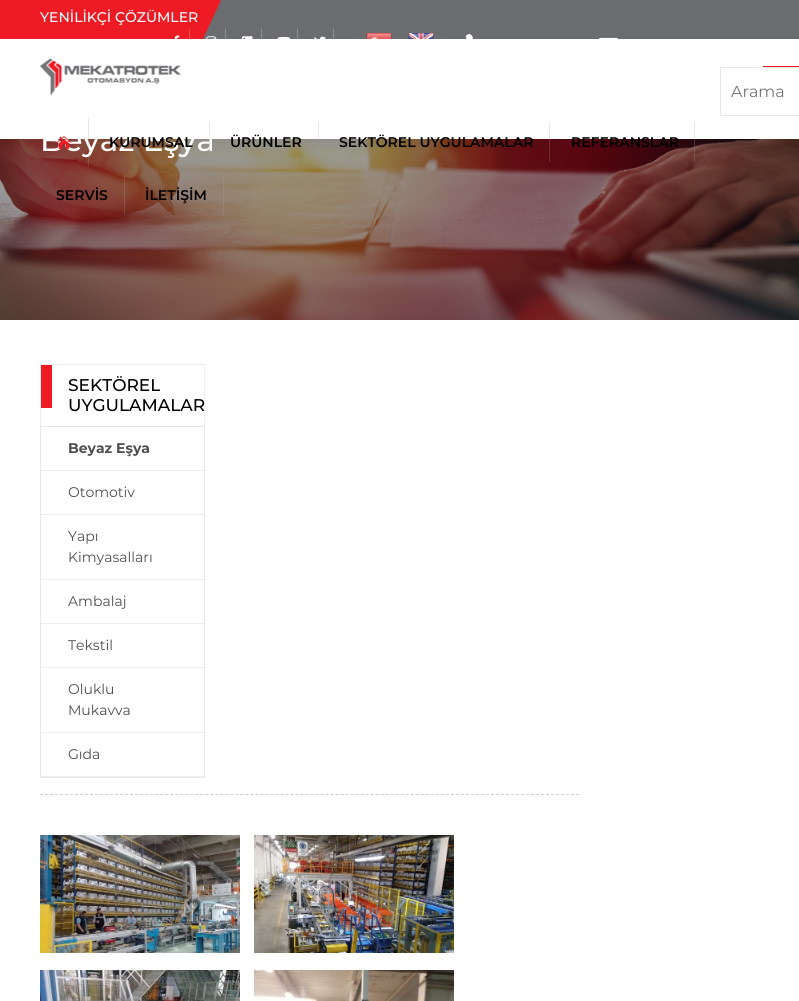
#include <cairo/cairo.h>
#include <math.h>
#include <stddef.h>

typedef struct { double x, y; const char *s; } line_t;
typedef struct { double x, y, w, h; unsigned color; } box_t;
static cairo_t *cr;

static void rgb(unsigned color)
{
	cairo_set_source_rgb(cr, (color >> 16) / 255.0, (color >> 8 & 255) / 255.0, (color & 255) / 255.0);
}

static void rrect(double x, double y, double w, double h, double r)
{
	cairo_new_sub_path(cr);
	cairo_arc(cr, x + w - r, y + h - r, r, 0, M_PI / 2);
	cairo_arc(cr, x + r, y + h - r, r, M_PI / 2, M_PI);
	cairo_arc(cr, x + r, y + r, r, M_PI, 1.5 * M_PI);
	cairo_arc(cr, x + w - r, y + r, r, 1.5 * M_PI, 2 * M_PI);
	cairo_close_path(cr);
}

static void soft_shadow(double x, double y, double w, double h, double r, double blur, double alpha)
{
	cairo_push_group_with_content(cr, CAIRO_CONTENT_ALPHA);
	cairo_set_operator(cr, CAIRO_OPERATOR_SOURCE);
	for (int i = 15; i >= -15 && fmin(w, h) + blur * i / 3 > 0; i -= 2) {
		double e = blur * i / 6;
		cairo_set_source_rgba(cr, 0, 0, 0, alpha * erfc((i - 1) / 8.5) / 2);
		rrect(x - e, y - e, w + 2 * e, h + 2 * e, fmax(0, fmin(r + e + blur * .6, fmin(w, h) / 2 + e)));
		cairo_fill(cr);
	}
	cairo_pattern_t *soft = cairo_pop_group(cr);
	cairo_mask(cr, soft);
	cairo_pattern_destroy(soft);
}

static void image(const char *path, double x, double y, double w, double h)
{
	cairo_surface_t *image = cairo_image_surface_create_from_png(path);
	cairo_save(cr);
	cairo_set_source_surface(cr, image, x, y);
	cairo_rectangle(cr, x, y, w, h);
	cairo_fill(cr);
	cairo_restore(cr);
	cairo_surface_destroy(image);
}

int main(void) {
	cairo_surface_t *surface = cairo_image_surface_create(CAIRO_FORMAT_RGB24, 799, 1001);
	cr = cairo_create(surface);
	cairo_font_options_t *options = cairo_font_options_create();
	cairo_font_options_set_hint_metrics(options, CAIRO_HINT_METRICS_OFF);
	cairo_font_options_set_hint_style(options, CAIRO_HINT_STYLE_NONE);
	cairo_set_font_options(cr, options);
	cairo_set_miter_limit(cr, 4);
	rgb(0xffffff);
	cairo_paint(cr);
	image("img/12.png", 0, 139, 799, 181);
	rgb(0x000000);
	soft_shadow(0, 3, 799, 139, 0, 6, 0.08);
	rgb(0x6b6c6f);
	cairo_rectangle(cr, 203, 0, 596, 39);
	cairo_fill(cr);
	rgb(0xee1b24);
	cairo_new_path(cr);
	cairo_move_to(cr, -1, 0);
	cairo_line_to(cr, 221, 0);
	cairo_line_to(cr, 203, 39);
	cairo_line_to(cr, -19, 39);
	cairo_close_path(cr);
	cairo_fill(cr);
	rgb(0xee545b);
	cairo_rectangle(cr, 189, 29, 1, 10);
	cairo_fill(cr);
	image("img/1.png", 174, 35, 6, 4);
	rgb(0x8e8f91);
	cairo_rectangle(cr, 225, 29, 1, 10);
	cairo_fill(cr);
	image("img/2.png", 206, 36, 11, 3);
	cairo_rectangle(cr, 261, 29, 1, 10);
	cairo_fill(cr);
	image("img/3.png", 242, 36, 11, 3);
	cairo_rectangle(cr, 297, 29, 1, 10);
	cairo_fill(cr);
	image("img/4.png", 277, 37, 13, 2);
	cairo_rectangle(cr, 333, 29, 1, 10);
	cairo_fill(cr);
	image("img/5.png", 314, 36, 12, 3);
	image("img/6.png", 366, 33, 26, 6);
	image("img/7.png", 408, 33, 26, 6);
	image("img/8.png", 465, 34, 8, 5);
	image("img/9.png", 599, 37, 19, 2);
	rgb(0xffffff);
	cairo_rectangle(cr, 0, 39, 799, 100);
	cairo_fill(cr);
	image("img/10.png", 39, 58, 142, 38);
	rgb(0xee1b24);
	cairo_rectangle(cr, 763, 66, 36, 1);
	cairo_fill(cr);
	cairo_rectangle(cr, 720.5, 67.5, 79, 48);
	rgb(0xe8e8e8);
	cairo_set_line_width(cr, 1);
	cairo_stroke(cr);
	cairo_set_source_rgba(cr, 0.651, 0.651, 0.651, 0.25);
	cairo_rectangle(cr, 318, 122, 1, 40);
	cairo_fill(cr);
	cairo_rectangle(cr, 549, 122, 1, 40);
	cairo_fill(cr);
	cairo_rectangle(cr, 694, 122, 1, 40);
	cairo_fill(cr);
	cairo_rectangle(cr, 124, 175, 1, 40);
	cairo_fill(cr);
	cairo_rectangle(cr, 223, 175, 1, 40);
	cairo_fill(cr);
	rgb(0xeeeeee);
	cairo_rectangle(cr, 40, 364, 165, 1);
	cairo_fill(cr);
	cairo_rectangle(cr, 204, 364, 1, 62);
	cairo_fill(cr);
	cairo_rectangle(cr, 40, 364, 1, 62);
	cairo_fill(cr);
	rgb(0xee1b24);
	cairo_rectangle(cr, 41, 365, 11, 43);
	cairo_fill(cr);
	cairo_rectangle(cr, 40.5, 426.5, 164, 351);
	rgb(0xe8e8e8);
	cairo_stroke(cr);
	{
		static const box_t items[] = {
			{41, 470, 163, 1, 0xeeeeee},
			{41, 514, 163, 1, 0xeeeeee},
			{41, 579, 163, 1, 0xeeeeee},
			{41, 623, 163, 1, 0xeeeeee},
			{41, 667, 163, 1, 0xeeeeee},
			{41, 732, 163, 1, 0xeeeeee},
			{41, 776, 163, 1, 0xeeeeee},
		};
		for (size_t i = 0; i < sizeof items / sizeof *items; i++) {
			rgb(items[i].color);
			cairo_rectangle(cr, items[i].x, items[i].y, items[i].w, items[i].h);
			cairo_fill(cr);
		}
	}
	cairo_new_path(cr);
	cairo_move_to(cr, 40, 794.5);
	cairo_line_to(cr, 579, 794.5);
	rgb(0xcecece);
	cairo_set_dash(cr, (double[]){3, 2.01}, 2, 0);
	cairo_stroke(cr);
	image("img/13.png", 40, 835, 200, 118);
	image("img/14.png", 254, 835, 200, 118);
	image("img/15.png", 40, 970, 200, 31);
	image("img/16.png", 254, 970, 200, 31);
	cairo_select_font_face(cr, "Montserrat Medium", CAIRO_FONT_SLANT_NORMAL, CAIRO_FONT_WEIGHT_NORMAL);
	cairo_set_font_size(cr, 14);
	rgb(0xffffff);
	cairo_move_to(cr, 40, 22);
	cairo_show_text(cr, "YENİLİKÇİ ÇÖZÜMLER");
	cairo_select_font_face(cr, "Montserrat", CAIRO_FONT_SLANT_NORMAL, CAIRO_FONT_WEIGHT_NORMAL);
	cairo_set_font_size(cr, 16);
	rgb(0x757575);
	cairo_move_to(cr, 731, 97);
	cairo_show_text(cr, "Arama");
	cairo_select_font_face(cr, "Montserrat SemiBold", CAIRO_FONT_SLANT_NORMAL, CAIRO_FONT_WEIGHT_NORMAL);
	cairo_set_font_size(cr, 14);
	rgb(0x000000);
	{
		static const line_t items[] = {
			{230, 147, "ÜRÜNLER"},
			{339, 147, "SEKTÖREL UYGULAMALAR"},
			{571, 147, "REFERANSLAR"},
			{56, 200, "SERVİS"},
			{145, 200, "İLETİŞİM"},
		};
		for (size_t i = 0; i < sizeof items / sizeof *items; i++) {
			cairo_move_to(cr, items[i].x, items[i].y);
			cairo_show_text(cr, items[i].s);
		}
	}
	cairo_select_font_face(cr, "Montserrat Medium", CAIRO_FONT_SLANT_NORMAL, CAIRO_FONT_WEIGHT_NORMAL);
	cairo_set_font_size(cr, 31);
	rgb(0xffffff);
	cairo_move_to(cr, 40, 151);
	cairo_show_text(cr, "Beyaz Eşya");
	cairo_select_font_face(cr, "Montserrat SemiBold", CAIRO_FONT_SLANT_NORMAL, CAIRO_FONT_WEIGHT_NORMAL);
	cairo_set_font_size(cr, 14);
	rgb(0x000000);
	cairo_move_to(cr, 109, 147);
	cairo_show_text(cr, "KURUMSAL");
	cairo_set_source_rgba(cr, 0.651, 0.651, 0.651, 0.25);
	cairo_rectangle(cr, 209, 122, 1, 40);
	cairo_fill(cr);
	image("img/11.png", 57, 136, 14, 13);
	cairo_rectangle(cr, 88, 118, 1, 48);
	cairo_fill(cr);
	cairo_select_font_face(cr, "Montserrat Medium", CAIRO_FONT_SLANT_NORMAL, CAIRO_FONT_WEIGHT_NORMAL);
	cairo_set_font_size(cr, 17);
	rgb(0x000000);
	cairo_move_to(cr, 68, 391);
	cairo_show_text(cr, "SEKTÖREL");
	cairo_move_to(cr, 68, 411);
	cairo_show_text(cr, "UYGULAMALAR");
	cairo_select_font_face(cr, "Montserrat", CAIRO_FONT_SLANT_NORMAL, CAIRO_FONT_WEIGHT_BOLD);
	cairo_set_font_size(cr, 14);
	rgb(0x4f4f4f);
	cairo_move_to(cr, 68, 453);
	cairo_show_text(cr, "Beyaz Eşya");
	cairo_select_font_face(cr, "Montserrat", CAIRO_FONT_SLANT_NORMAL, CAIRO_FONT_WEIGHT_NORMAL);
	{
		static const line_t items[] = {
			{68, 497, "Otomotiv"},
			{68, 541, "Yapı"},
			{68, 562, "Kimyasalları"},
			{68, 606, "Ambalaj"},
			{68, 650, "Tekstil"},
			{68, 694, "Oluklu"},
			{68, 715, "Mukavva"},
			{68, 759, "Gıda"},
		};
		for (size_t i = 0; i < sizeof items / sizeof *items; i++) {
			cairo_move_to(cr, items[i].x, items[i].y);
			cairo_show_text(cr, items[i].s);
		}
	}
	cairo_surface_write_to_png(surface, "page.png");
	cairo_font_options_destroy(options);
	cairo_destroy(cr);
	cairo_surface_destroy(surface);
	return 0;
}
